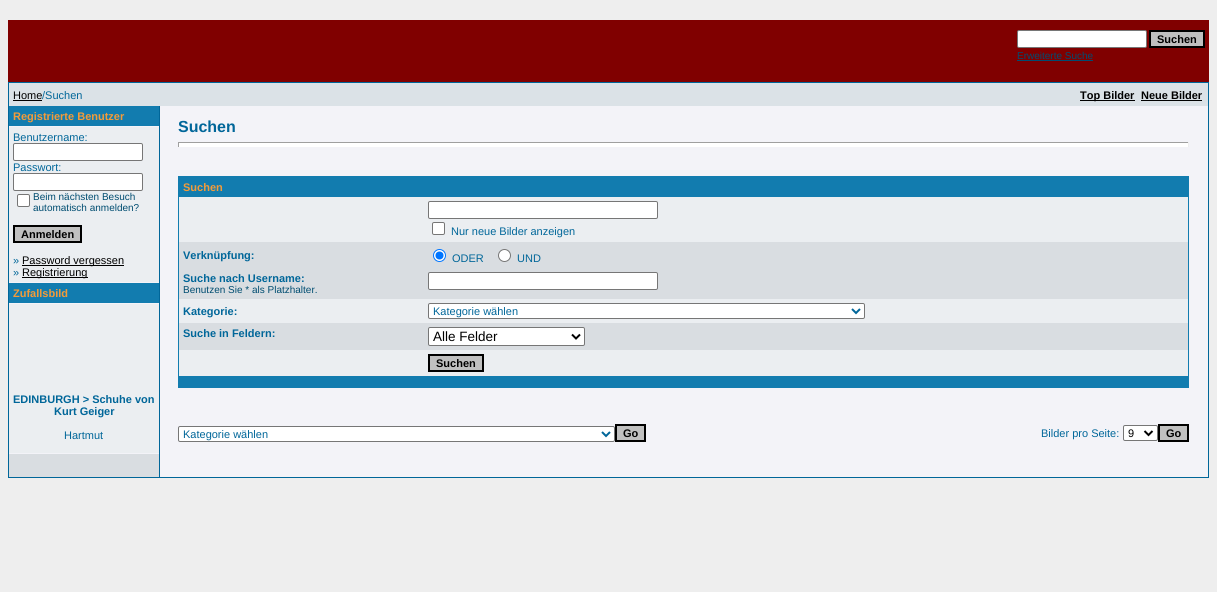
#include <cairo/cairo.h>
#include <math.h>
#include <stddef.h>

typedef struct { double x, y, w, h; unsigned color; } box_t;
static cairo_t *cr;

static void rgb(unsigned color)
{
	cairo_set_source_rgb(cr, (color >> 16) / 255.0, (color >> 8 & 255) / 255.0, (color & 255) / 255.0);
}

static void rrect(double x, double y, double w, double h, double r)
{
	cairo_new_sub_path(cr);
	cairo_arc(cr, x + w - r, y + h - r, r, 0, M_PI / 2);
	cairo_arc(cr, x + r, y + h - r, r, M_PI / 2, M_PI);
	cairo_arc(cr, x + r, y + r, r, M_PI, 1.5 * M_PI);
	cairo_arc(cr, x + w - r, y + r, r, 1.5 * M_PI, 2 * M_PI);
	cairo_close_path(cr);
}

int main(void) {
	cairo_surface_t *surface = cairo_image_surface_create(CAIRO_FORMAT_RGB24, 1217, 592);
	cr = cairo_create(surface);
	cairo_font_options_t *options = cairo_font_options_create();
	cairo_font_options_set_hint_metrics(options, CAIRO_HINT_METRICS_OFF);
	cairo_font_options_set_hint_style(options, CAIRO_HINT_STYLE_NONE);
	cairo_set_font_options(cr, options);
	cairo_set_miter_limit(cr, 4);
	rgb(0xeeeeee);
	cairo_paint(cr);
	rgb(0x800000);
	cairo_rectangle(cr, 8, 20, 1201, 62);
	cairo_fill(cr);
	rgb(0xffffff);
	rrect(1017.5, 30.5, 129, 17, 1.5);
	cairo_fill_preserve(cr);
	rgb(0x767676);
	cairo_set_line_width(cr, 1);
	cairo_stroke(cr);
	rgb(0xc0c0c0);
	cairo_rectangle(cr, 1150, 31, 54, 16);
	cairo_fill_preserve(cr);
	rgb(0x000000);
	cairo_set_line_width(cr, 2);
	cairo_stroke(cr);
	{
		static const box_t items[] = {
			{1017, 60, 76, 1, 0x004d71},
			{8, 82, 1201, 396, 0x006699},
			{160, 106, 1048, 371, 0xf3f3f8},
			{9, 83, 1199, 23, 0xdbe2e7},
			{13, 100, 29, 1, 0x000000},
			{1080, 100, 55, 1, 0x000000},
			{1141, 100, 61, 1, 0x000000},
			{9, 454, 150, 23, 0xd9dde1},
			{9, 106, 150, 20, 0x127caf},
			{9, 126, 150, 1, 0xf3f3f8},
			{9, 127, 150, 155, 0xebeef1},
		};
		for (size_t i = 0; i < sizeof items / sizeof *items; i++) {
			rgb(items[i].color);
			cairo_rectangle(cr, items[i].x, items[i].y, items[i].w, items[i].h);
			cairo_fill(cr);
		}
	}
	rgb(0xffffff);
	rrect(13.5, 143.5, 129, 17, 1.5);
	cairo_fill_preserve(cr);
	rgb(0x767676);
	cairo_set_line_width(cr, 1);
	cairo_stroke(cr);
	rgb(0xffffff);
	rrect(13.5, 173.5, 129, 17, 1.5);
	cairo_fill_preserve(cr);
	rgb(0x767676);
	cairo_stroke(cr);
	rgb(0xffffff);
	rrect(17.5, 194.5, 12, 12, 1.5);
	cairo_fill_preserve(cr);
	rgb(0x767676);
	cairo_stroke(cr);
	rgb(0xc0c0c0);
	cairo_rectangle(cr, 14, 226, 67, 16);
	cairo_fill_preserve(cr);
	rgb(0x000000);
	cairo_set_line_width(cr, 2);
	cairo_stroke(cr);
	{
		static const box_t items[] = {
			{22, 265, 102, 1, 0x000000},
			{22, 277, 66, 1, 0x000000},
			{9, 282, 150, 1, 0xf3f3f8},
			{9, 283, 150, 20, 0x127caf},
			{9, 303, 150, 1, 0xf3f3f8},
			{9, 304, 150, 149, 0xebeef1},
			{9, 453, 150, 1, 0xf3f3f8},
			{178, 143, 1011, 4, 0xffffff},
			{178, 142, 1011, 1, 0x9f9f9f},
			{1188, 142, 1, 5, 0xeeeeee},
			{178, 142, 1, 5, 0x9f9f9f},
			{178, 176, 1011, 212, 0x127caf},
			{179, 197, 1009, 45, 0xebeef1},
		};
		for (size_t i = 0; i < sizeof items / sizeof *items; i++) {
			rgb(items[i].color);
			cairo_rectangle(cr, items[i].x, items[i].y, items[i].w, items[i].h);
			cairo_fill(cr);
		}
	}
	rgb(0xffffff);
	rrect(428.5, 201.5, 229, 17, 1.5);
	cairo_fill_preserve(cr);
	rgb(0x767676);
	cairo_set_line_width(cr, 1);
	cairo_stroke(cr);
	rgb(0xffffff);
	rrect(432.5, 222.5, 12, 12, 1.5);
	cairo_fill_preserve(cr);
	rgb(0x767676);
	cairo_stroke(cr);
	rgb(0xd9dde1);
	cairo_rectangle(cr, 179, 242, 1009, 26);
	cairo_fill(cr);
	rgb(0xffffff);
	cairo_arc(cr, 439.5, 255.5, 6, 0, 2 * M_PI);
	cairo_fill_preserve(cr);
	rgb(0x0075ff);
	cairo_stroke(cr);
	cairo_arc(cr, 439.5, 255.5, 4, 0, 2 * M_PI);
	cairo_fill(cr);
	rgb(0xffffff);
	cairo_arc(cr, 504.5, 255.5, 6, 0, 2 * M_PI);
	cairo_fill_preserve(cr);
	rgb(0x767676);
	cairo_stroke(cr);
	rgb(0xd9dde1);
	cairo_rectangle(cr, 179, 268, 1009, 31);
	cairo_fill(cr);
	rgb(0xffffff);
	rrect(428.5, 272.5, 229, 17, 1.5);
	cairo_fill_preserve(cr);
	rgb(0x767676);
	cairo_stroke(cr);
	rgb(0xebeef1);
	cairo_rectangle(cr, 179, 299, 1009, 24);
	cairo_fill(cr);
	rgb(0xffffff);
	rrect(428.5, 303.5, 436, 15, 1.5);
	cairo_fill_preserve(cr);
	rgb(0x767676);
	cairo_stroke(cr);
	cairo_new_path(cr);
	cairo_move_to(cr, 852, 309);
	cairo_line_to(cr, 856, 313);
	cairo_line_to(cr, 860, 309);
	rgb(0x006699);
	cairo_set_line_width(cr, 2);
	cairo_stroke(cr);
	rgb(0xd9dde1);
	cairo_rectangle(cr, 179, 323, 1009, 27);
	cairo_fill(cr);
	rgb(0xffffff);
	rrect(428.5, 327.5, 156, 18, 1.5);
	cairo_fill_preserve(cr);
	rgb(0x767676);
	cairo_set_line_width(cr, 1);
	cairo_stroke(cr);
	cairo_new_path(cr);
	cairo_move_to(cr, 572, 334.5);
	cairo_line_to(cr, 576, 338.5);
	cairo_line_to(cr, 580, 334.5);
	rgb(0x000000);
	cairo_set_line_width(cr, 2);
	cairo_stroke(cr);
	rgb(0xebeef1);
	cairo_rectangle(cr, 179, 350, 1009, 26);
	cairo_fill(cr);
	rgb(0xc0c0c0);
	cairo_rectangle(cr, 429, 355, 54, 16);
	cairo_fill_preserve(cr);
	rgb(0x000000);
	cairo_stroke(cr);
	rgb(0xffffff);
	rrect(178.5, 426.5, 436, 15, 1.5);
	cairo_fill_preserve(cr);
	rgb(0x767676);
	cairo_set_line_width(cr, 1);
	cairo_stroke(cr);
	cairo_new_path(cr);
	cairo_move_to(cr, 602, 432);
	cairo_line_to(cr, 606, 436);
	cairo_line_to(cr, 610, 432);
	rgb(0x006699);
	cairo_set_line_width(cr, 2);
	cairo_stroke(cr);
	rgb(0xc0c0c0);
	cairo_rectangle(cr, 616, 425, 29, 16);
	cairo_fill_preserve(cr);
	rgb(0x000000);
	cairo_stroke(cr);
	rgb(0xffffff);
	rrect(1123.5, 425.5, 34, 15, 1.5);
	cairo_fill_preserve(cr);
	rgb(0x767676);
	cairo_set_line_width(cr, 1);
	cairo_stroke(cr);
	cairo_new_path(cr);
	cairo_move_to(cr, 1144.5, 431);
	cairo_line_to(cr, 1148.5, 435);
	cairo_line_to(cr, 1152.5, 431);
	rgb(0x000000);
	cairo_set_line_width(cr, 2);
	cairo_stroke(cr);
	rgb(0xc0c0c0);
	cairo_rectangle(cr, 1159, 425, 29, 16);
	cairo_fill_preserve(cr);
	rgb(0x000000);
	cairo_stroke(cr);
	cairo_select_font_face(cr, "Liberation Sans", CAIRO_FONT_SLANT_NORMAL, CAIRO_FONT_WEIGHT_BOLD);
	cairo_set_font_size(cr, 11);
	cairo_move_to(cr, 1157, 43);
	cairo_show_text(cr, "Suchen");
	cairo_select_font_face(cr, "Liberation Sans", CAIRO_FONT_SLANT_NORMAL, CAIRO_FONT_WEIGHT_NORMAL);
	cairo_set_font_size(cr, 10);
	rgb(0x004d71);
	cairo_move_to(cr, 1017, 59);
	cairo_show_text(cr, "Erweiterte Suche");
	cairo_set_font_size(cr, 11);
	rgb(0x000000);
	cairo_move_to(cr, 13, 99);
	cairo_show_text(cr, "Home");
	rgb(0x006699);
	cairo_move_to(cr, 42, 99);
	cairo_show_text(cr, "/Suchen");
	cairo_select_font_face(cr, "Liberation Sans", CAIRO_FONT_SLANT_NORMAL, CAIRO_FONT_WEIGHT_BOLD);
	rgb(0x000000);
	cairo_move_to(cr, 1080, 99);
	cairo_show_text(cr, "Top Bilder");
	cairo_move_to(cr, 1141, 99);
	cairo_show_text(cr, "Neue Bilder");
	rgb(0xf49b39);
	cairo_move_to(cr, 13, 120);
	cairo_show_text(cr, "Registrierte Benutzer");
	cairo_select_font_face(cr, "Liberation Sans", CAIRO_FONT_SLANT_NORMAL, CAIRO_FONT_WEIGHT_NORMAL);
	rgb(0x006699);
	cairo_move_to(cr, 13, 141);
	cairo_show_text(cr, "Benutzername:");
	cairo_move_to(cr, 13, 171);
	cairo_show_text(cr, "Passwort:");
	cairo_set_font_size(cr, 10);
	rgb(0x004d71);
	cairo_move_to(cr, 33, 200);
	cairo_show_text(cr, "Beim nächsten Besuch");
	cairo_move_to(cr, 33, 211);
	cairo_show_text(cr, "automatisch anmelden?");
	cairo_select_font_face(cr, "Liberation Sans", CAIRO_FONT_SLANT_NORMAL, CAIRO_FONT_WEIGHT_BOLD);
	cairo_set_font_size(cr, 11);
	rgb(0x000000);
	cairo_move_to(cr, 21, 238);
	cairo_show_text(cr, "Anmelden");
	cairo_select_font_face(cr, "Liberation Sans", CAIRO_FONT_SLANT_NORMAL, CAIRO_FONT_WEIGHT_NORMAL);
	rgb(0x006699);
	cairo_move_to(cr, 13, 264);
	cairo_show_text(cr, "»");
	rgb(0x000000);
	cairo_move_to(cr, 22, 264);
	cairo_show_text(cr, "Password vergessen");
	rgb(0x006699);
	cairo_move_to(cr, 13, 276);
	cairo_show_text(cr, "»");
	rgb(0x000000);
	cairo_move_to(cr, 22, 276);
	cairo_show_text(cr, "Registrierung");
	cairo_select_font_face(cr, "Liberation Sans", CAIRO_FONT_SLANT_NORMAL, CAIRO_FONT_WEIGHT_BOLD);
	rgb(0xf49b39);
	cairo_move_to(cr, 13, 297);
	cairo_show_text(cr, "Zufallsbild");
	rgb(0x006699);
	cairo_move_to(cr, 13, 403);
	cairo_show_text(cr, "EDINBURGH > Schuhe von");
	cairo_move_to(cr, 54, 415);
	cairo_show_text(cr, "Kurt Geiger");
	cairo_select_font_face(cr, "Liberation Sans", CAIRO_FONT_SLANT_NORMAL, CAIRO_FONT_WEIGHT_NORMAL);
	cairo_move_to(cr, 64, 439);
	cairo_show_text(cr, "Hartmut");
	cairo_select_font_face(cr, "Liberation Sans", CAIRO_FONT_SLANT_NORMAL, CAIRO_FONT_WEIGHT_BOLD);
	cairo_set_font_size(cr, 16);
	cairo_move_to(cr, 178, 132);
	cairo_show_text(cr, "Suchen");
	cairo_set_font_size(cr, 11);
	rgb(0xf49b39);
	cairo_move_to(cr, 183, 191);
	cairo_show_text(cr, "Suchen");
	cairo_select_font_face(cr, "Liberation Sans", CAIRO_FONT_SLANT_NORMAL, CAIRO_FONT_WEIGHT_NORMAL);
	rgb(0x006699);
	cairo_move_to(cr, 451, 235);
	cairo_show_text(cr, "Nur neue Bilder anzeigen");
	cairo_select_font_face(cr, "Liberation Sans", CAIRO_FONT_SLANT_NORMAL, CAIRO_FONT_WEIGHT_BOLD);
	cairo_move_to(cr, 183, 259);
	cairo_show_text(cr, "Verknüpfung:");
	cairo_select_font_face(cr, "Liberation Sans", CAIRO_FONT_SLANT_NORMAL, CAIRO_FONT_WEIGHT_NORMAL);
	cairo_move_to(cr, 452, 262);
	cairo_show_text(cr, "ODER");
	cairo_move_to(cr, 517, 262);
	cairo_show_text(cr, "UND");
	cairo_select_font_face(cr, "Liberation Sans", CAIRO_FONT_SLANT_NORMAL, CAIRO_FONT_WEIGHT_BOLD);
	cairo_move_to(cr, 183, 282);
	cairo_show_text(cr, "Suche nach Username:");
	cairo_select_font_face(cr, "Liberation Sans", CAIRO_FONT_SLANT_NORMAL, CAIRO_FONT_WEIGHT_NORMAL);
	cairo_set_font_size(cr, 10);
	rgb(0x004d71);
	cairo_move_to(cr, 183, 293);
	cairo_show_text(cr, "Benutzen Sie * als Platzhalter.");
	cairo_select_font_face(cr, "Liberation Sans", CAIRO_FONT_SLANT_NORMAL, CAIRO_FONT_WEIGHT_BOLD);
	cairo_set_font_size(cr, 11);
	rgb(0x006699);
	cairo_move_to(cr, 183, 315);
	cairo_show_text(cr, "Kategorie:");
	cairo_select_font_face(cr, "Liberation Sans", CAIRO_FONT_SLANT_NORMAL, CAIRO_FONT_WEIGHT_NORMAL);
	cairo_move_to(cr, 433, 315);
	cairo_show_text(cr, "Kategorie wählen");
	cairo_select_font_face(cr, "Liberation Sans", CAIRO_FONT_SLANT_NORMAL, CAIRO_FONT_WEIGHT_BOLD);
	cairo_move_to(cr, 183, 337);
	cairo_show_text(cr, "Suche in Feldern:");
	cairo_select_font_face(cr, "Liberation Sans", CAIRO_FONT_SLANT_NORMAL, CAIRO_FONT_WEIGHT_NORMAL);
	cairo_set_font_size(cr, 13.5);
	rgb(0x000000);
	cairo_move_to(cr, 433, 341);
	cairo_show_text(cr, "Alle Felder");
	cairo_select_font_face(cr, "Liberation Sans", CAIRO_FONT_SLANT_NORMAL, CAIRO_FONT_WEIGHT_BOLD);
	cairo_set_font_size(cr, 11);
	cairo_move_to(cr, 436, 367);
	cairo_show_text(cr, "Suchen");
	cairo_select_font_face(cr, "Liberation Sans", CAIRO_FONT_SLANT_NORMAL, CAIRO_FONT_WEIGHT_NORMAL);
	rgb(0x006699);
	cairo_move_to(cr, 183, 438);
	cairo_show_text(cr, "Kategorie wählen");
	cairo_select_font_face(cr, "Liberation Sans", CAIRO_FONT_SLANT_NORMAL, CAIRO_FONT_WEIGHT_BOLD);
	rgb(0x000000);
	cairo_move_to(cr, 623, 437);
	cairo_show_text(cr, "Go");
	cairo_select_font_face(cr, "Liberation Sans", CAIRO_FONT_SLANT_NORMAL, CAIRO_FONT_WEIGHT_NORMAL);
	rgb(0x006699);
	cairo_move_to(cr, 1041, 437);
	cairo_show_text(cr, "Bilder pro Seite:");
	rgb(0x000000);
	cairo_move_to(cr, 1128, 437);
	cairo_show_text(cr, "9");
	cairo_select_font_face(cr, "Liberation Sans", CAIRO_FONT_SLANT_NORMAL, CAIRO_FONT_WEIGHT_BOLD);
	cairo_move_to(cr, 1166, 437);
	cairo_show_text(cr, "Go");
	cairo_surface_write_to_png(surface, "page.png");
	cairo_font_options_destroy(options);
	cairo_destroy(cr);
	cairo_surface_destroy(surface);
	return 0;
}
